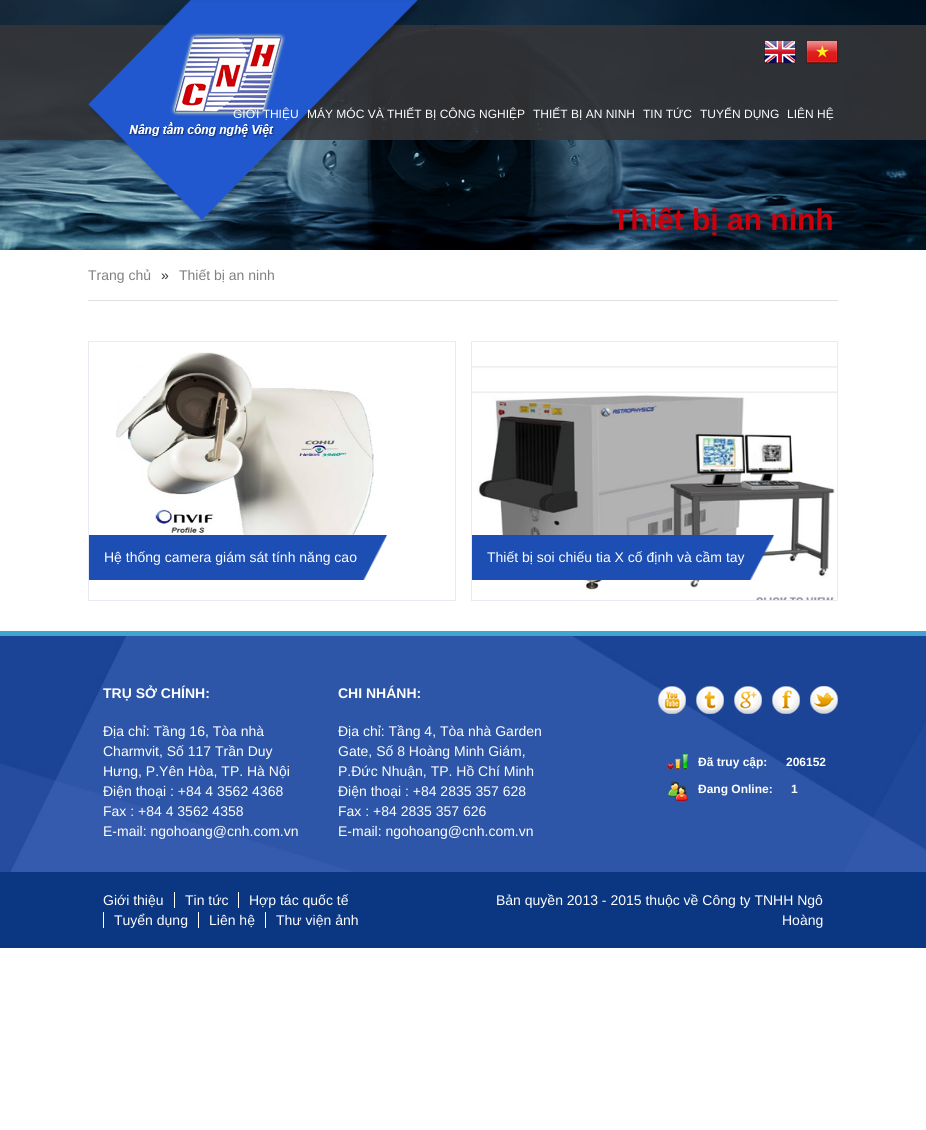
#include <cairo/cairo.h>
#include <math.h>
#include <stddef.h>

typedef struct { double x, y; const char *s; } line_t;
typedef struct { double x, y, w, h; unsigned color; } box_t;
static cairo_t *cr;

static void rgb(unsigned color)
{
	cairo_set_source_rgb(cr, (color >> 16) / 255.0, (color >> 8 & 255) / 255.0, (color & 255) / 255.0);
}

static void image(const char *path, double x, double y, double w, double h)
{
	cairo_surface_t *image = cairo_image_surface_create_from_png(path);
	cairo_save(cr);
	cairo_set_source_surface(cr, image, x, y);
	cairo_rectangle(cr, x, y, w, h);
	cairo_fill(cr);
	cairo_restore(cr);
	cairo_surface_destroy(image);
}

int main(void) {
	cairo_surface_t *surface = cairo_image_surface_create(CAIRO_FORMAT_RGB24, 926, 1130);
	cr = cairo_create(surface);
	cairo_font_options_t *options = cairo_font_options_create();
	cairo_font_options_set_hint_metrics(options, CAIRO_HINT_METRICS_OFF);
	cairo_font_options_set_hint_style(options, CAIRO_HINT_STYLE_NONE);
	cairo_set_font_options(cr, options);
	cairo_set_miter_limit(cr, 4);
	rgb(0xffffff);
	cairo_paint(cr);
	image("img/5.png", 0, 0, 926, 250);
	cairo_set_source_rgba(cr, 0.208, 0.208, 0.216, 0.88);
	cairo_rectangle(cr, 0, 25, 926, 115);
	cairo_fill(cr);
	image("img/1.png", 88, 0, 330, 220);
	image("img/2.png", 129, 33, 157, 106);
	image("img/3.png", 764, 40, 32, 24);
	image("img/4.png", 806, 40, 32, 24);
	rgb(0xe1e1e1);
	cairo_rectangle(cr, 88, 300, 750, 1);
	cairo_fill(cr);
	cairo_rectangle(cr, 88.5, 341.5, 367, 259);
	rgb(0xe8ebf1);
	cairo_set_line_width(cr, 1);
	cairo_stroke(cr);
	image("img/6.png", 116, 352, 258, 211);
	image("img/7.png", 89, 535, 298, 45);
	cairo_rectangle(cr, 471.5, 341.5, 366, 259);
	cairo_stroke(cr);
	image("img/8.png", 472, 366, 365, 234);
	image("img/9.png", 472, 535, 302, 45);
	image("img/10.png", 0, 636, 926, 236);
	rgb(0x40a3d0);
	cairo_rectangle(cr, 0, 631, 926, 5);
	cairo_fill(cr);
	image("img/11.png", 658, 686, 28, 28);
	image("img/12.png", 696, 686, 28, 28);
	image("img/13.png", 734, 686, 28, 28);
	image("img/14.png", 772, 686, 28, 28);
	image("img/15.png", 810, 686, 28, 28);
	image("img/16.png", 668, 754, 20, 15);
	image("img/17.png", 668, 781, 20, 20);
	{
		static const box_t items[] = {
			{0, 872, 926, 76, 0x0b3782},
			{174, 892, 1, 16, 0xffffff},
			{238, 892, 1, 16, 0xffffff},
			{103, 912, 1, 16, 0xffffff},
			{198, 912, 1, 16, 0xffffff},
			{265, 912, 1, 16, 0xffffff},
		};
		for (size_t i = 0; i < sizeof items / sizeof *items; i++) {
			rgb(items[i].color);
			cairo_rectangle(cr, items[i].x, items[i].y, items[i].w, items[i].h);
			cairo_fill(cr);
		}
	}
	cairo_select_font_face(cr, "Liberation Sans", CAIRO_FONT_SLANT_NORMAL, CAIRO_FONT_WEIGHT_NORMAL);
	cairo_set_font_size(cr, 12);
	{
		static const line_t items[] = {
			{233, 118, "GIỚI THIỆU"},
			{307, 118, "MÁY MÓC VÀ THIẾT BỊ CÔNG NGHIỆP"},
			{533, 118, "THIẾT BỊ AN NINH"},
			{643, 118, "TIN TỨC"},
			{700, 118, "TUYỂN DỤNG"},
			{787, 118, "LIÊN HỆ"},
		};
		for (size_t i = 0; i < sizeof items / sizeof *items; i++) {
			cairo_move_to(cr, items[i].x, items[i].y);
			cairo_show_text(cr, items[i].s);
		}
	}
	cairo_select_font_face(cr, "Liberation Sans", CAIRO_FONT_SLANT_NORMAL, CAIRO_FONT_WEIGHT_BOLD);
	cairo_set_font_size(cr, 30);
	rgb(0xcd010c);
	cairo_move_to(cr, 612, 230);
	cairo_show_text(cr, "Thiết bị an ninh");
	cairo_select_font_face(cr, "Liberation Sans", CAIRO_FONT_SLANT_NORMAL, CAIRO_FONT_WEIGHT_NORMAL);
	cairo_set_font_size(cr, 14);
	rgb(0x808080);
	cairo_move_to(cr, 88, 280);
	cairo_show_text(cr, "Trang chủ");
	rgb(0x303030);
	cairo_move_to(cr, 161, 280);
	cairo_show_text(cr, "»");
	rgb(0x808080);
	cairo_move_to(cr, 179, 280);
	cairo_show_text(cr, "Thiết bị an ninh");
	rgb(0xffffff);
	cairo_move_to(cr, 104, 562);
	cairo_show_text(cr, "Hệ thống camera giám sát tính năng cao");
	cairo_move_to(cr, 487, 562);
	cairo_show_text(cr, "Thiết bị soi chiếu tia X cố định và cầm tay");
	cairo_select_font_face(cr, "Liberation Sans", CAIRO_FONT_SLANT_NORMAL, CAIRO_FONT_WEIGHT_BOLD);
	cairo_move_to(cr, 103, 698);
	cairo_show_text(cr, "TRỤ SỞ CHÍNH:");
	cairo_select_font_face(cr, "Liberation Sans", CAIRO_FONT_SLANT_NORMAL, CAIRO_FONT_WEIGHT_NORMAL);
	{
		static const line_t items[] = {
			{103, 736, "Địa chỉ: Tầng 16, Tòa nhà"},
			{103, 756, "Charmvit, Số 117 Trần Duy"},
			{103, 776, "Hưng, P.Yên Hòa, TP. Hà Nội"},
			{103, 796, "Điện thoại : +84 4 3562 4368"},
			{103, 816, "Fax : +84 4 3562 4358"},
			{103, 836, "E-mail: ngohoang@cnh.com.vn"},
		};
		for (size_t i = 0; i < sizeof items / sizeof *items; i++) {
			cairo_move_to(cr, items[i].x, items[i].y);
			cairo_show_text(cr, items[i].s);
		}
	}
	cairo_select_font_face(cr, "Liberation Sans", CAIRO_FONT_SLANT_NORMAL, CAIRO_FONT_WEIGHT_BOLD);
	cairo_move_to(cr, 338, 698);
	cairo_show_text(cr, "CHI NHÁNH:");
	cairo_select_font_face(cr, "Liberation Sans", CAIRO_FONT_SLANT_NORMAL, CAIRO_FONT_WEIGHT_NORMAL);
	{
		static const line_t items[] = {
			{338, 736, "Địa chỉ: Tầng 4, Tòa nhà Garden"},
			{338, 756, "Gate, Số 8 Hoàng Minh Giám,"},
			{338, 776, "P.Đức Nhuận, TP. Hồ Chí Minh"},
			{338, 796, "Điện thoại : +84 2835 357 628"},
			{338, 816, "Fax : +84 2835 357 626"},
			{338, 836, "E-mail: ngohoang@cnh.com.vn"},
		};
		for (size_t i = 0; i < sizeof items / sizeof *items; i++) {
			cairo_move_to(cr, items[i].x, items[i].y);
			cairo_show_text(cr, items[i].s);
		}
	}
	cairo_select_font_face(cr, "Liberation Sans", CAIRO_FONT_SLANT_NORMAL, CAIRO_FONT_WEIGHT_BOLD);
	cairo_set_font_size(cr, 12);
	{
		static const line_t items[] = {
			{698, 766, "Đã truy cập:"},
			{786, 766, "206152"},
			{698, 793, "Đang Online:"},
			{791, 793, "1"},
		};
		for (size_t i = 0; i < sizeof items / sizeof *items; i++) {
			cairo_move_to(cr, items[i].x, items[i].y);
			cairo_show_text(cr, items[i].s);
		}
	}
	cairo_select_font_face(cr, "Liberation Sans", CAIRO_FONT_SLANT_NORMAL, CAIRO_FONT_WEIGHT_NORMAL);
	cairo_set_font_size(cr, 14);
	{
		static const line_t items[] = {
			{103, 905, "Giới thiệu"},
			{185, 905, "Tin tức"},
			{249, 905, "Hợp tác quốc tế"},
			{114, 925, "Tuyển dụng"},
			{209, 925, "Liên hệ"},
			{276, 925, "Thư viện ảnh"},
			{496, 905, "Bản quyền 2013 - 2015 thuộc về Công ty TNHH Ngô"},
			{782, 925, "Hoàng"},
		};
		for (size_t i = 0; i < sizeof items / sizeof *items; i++) {
			cairo_move_to(cr, items[i].x, items[i].y);
			cairo_show_text(cr, items[i].s);
		}
	}
	cairo_surface_write_to_png(surface, "page.png");
	cairo_font_options_destroy(options);
	cairo_destroy(cr);
	cairo_surface_destroy(surface);
	return 0;
}
